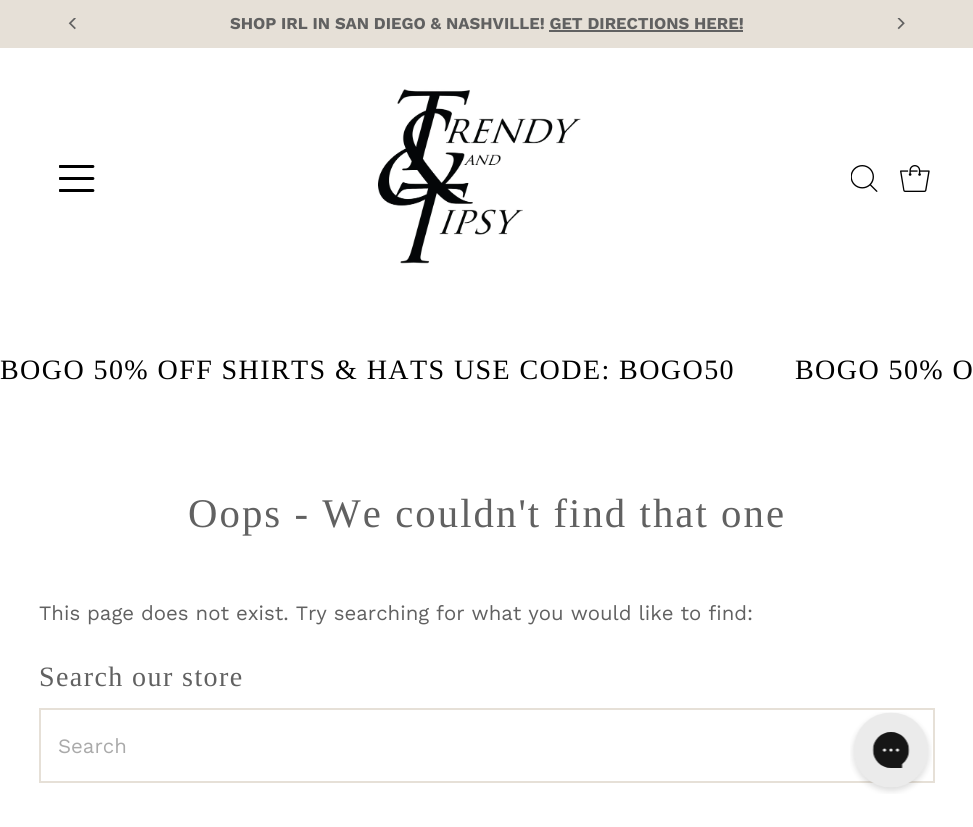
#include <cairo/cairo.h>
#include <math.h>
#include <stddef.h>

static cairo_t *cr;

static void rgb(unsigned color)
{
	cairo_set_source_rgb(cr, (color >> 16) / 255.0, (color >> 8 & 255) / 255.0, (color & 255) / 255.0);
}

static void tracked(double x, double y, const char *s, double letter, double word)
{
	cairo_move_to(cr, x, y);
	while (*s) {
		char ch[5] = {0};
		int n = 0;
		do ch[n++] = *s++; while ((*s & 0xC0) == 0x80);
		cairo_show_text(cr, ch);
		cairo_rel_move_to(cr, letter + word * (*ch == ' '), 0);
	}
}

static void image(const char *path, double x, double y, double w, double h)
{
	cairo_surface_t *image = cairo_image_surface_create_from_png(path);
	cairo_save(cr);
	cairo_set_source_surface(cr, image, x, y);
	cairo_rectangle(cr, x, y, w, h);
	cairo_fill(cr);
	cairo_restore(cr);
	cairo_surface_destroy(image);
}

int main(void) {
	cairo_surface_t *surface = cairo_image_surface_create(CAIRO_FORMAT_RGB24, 973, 827);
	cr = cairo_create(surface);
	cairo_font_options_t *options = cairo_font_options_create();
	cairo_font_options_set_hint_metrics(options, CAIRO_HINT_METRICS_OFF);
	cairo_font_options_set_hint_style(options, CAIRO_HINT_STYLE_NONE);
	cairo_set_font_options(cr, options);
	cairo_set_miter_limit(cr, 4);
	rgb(0xffffff);
	cairo_paint(cr);
	rgb(0xe6e0d7);
	cairo_rectangle(cr, 0, 0, 973, 48);
	cairo_fill(cr);
	image("img/1.png", 68, 18, 8, 12);
	rgb(0x616161);
	cairo_rectangle(cr, 549, 30, 194, 2);
	cairo_fill(cr);
	image("img/2.png", 897, 18, 8, 12);
	image("img/3.png", 59, 165, 36, 27);
	image("img/4.png", 378, 89, 203, 175);
	image("img/5.png", 851, 165, 27, 27);
	image("img/6.png", 900, 165, 30, 27);
	cairo_rectangle(cr, 40, 709, 894, 73);
	rgb(0xe6e0d7);
	cairo_stroke(cr);
	image("img/7.png", 850, 712, 82, 82);
	cairo_select_font_face(cr, "Work Sans", CAIRO_FONT_SLANT_NORMAL, CAIRO_FONT_WEIGHT_BOLD);
	cairo_set_font_size(cr, 16.6);
	rgb(0x616161);
	cairo_move_to(cr, 230, 29);
	cairo_show_text(cr, "SHOP IRL IN SAN DIEGO & NASHVILLE! GET DIRECTIONS HERE!");
	cairo_select_font_face(cr, "Liberation Serif", CAIRO_FONT_SLANT_NORMAL, CAIRO_FONT_WEIGHT_NORMAL);
	cairo_set_font_size(cr, 28.05);
	rgb(0x000000);
	tracked(0, 379, "BOGO 50% OFF SHIRTS & HATS USE CODE: BOGO50", 1.4, 0);
	tracked(795, 379, "BOGO 50% O", 1.4, 0);
	cairo_set_font_size(cr, 40.75);
	rgb(0x616161);
	tracked(188, 527, "Oops - We couldn't find that one", 2.05, 0);
	cairo_select_font_face(cr, "Work Sans", CAIRO_FONT_SLANT_NORMAL, CAIRO_FONT_WEIGHT_NORMAL);
	cairo_set_font_size(cr, 20.4);
	cairo_move_to(cr, 39, 620);
	cairo_show_text(cr, "This page does not exist. Try searching for what you would like to find:");
	cairo_select_font_face(cr, "Liberation Serif", CAIRO_FONT_SLANT_NORMAL, CAIRO_FONT_WEIGHT_NORMAL);
	cairo_set_font_size(cr, 28.05);
	tracked(39, 686, "Search our store", 1.4, 0);
	cairo_select_font_face(cr, "Work Sans", CAIRO_FONT_SLANT_NORMAL, CAIRO_FONT_WEIGHT_NORMAL);
	cairo_set_font_size(cr, 20.4);
	rgb(0xaaaaaa);
	cairo_move_to(cr, 58, 753);
	cairo_show_text(cr, "Search");
	cairo_surface_write_to_png(surface, "page.png");
	cairo_font_options_destroy(options);
	cairo_destroy(cr);
	cairo_surface_destroy(surface);
	return 0;
}
